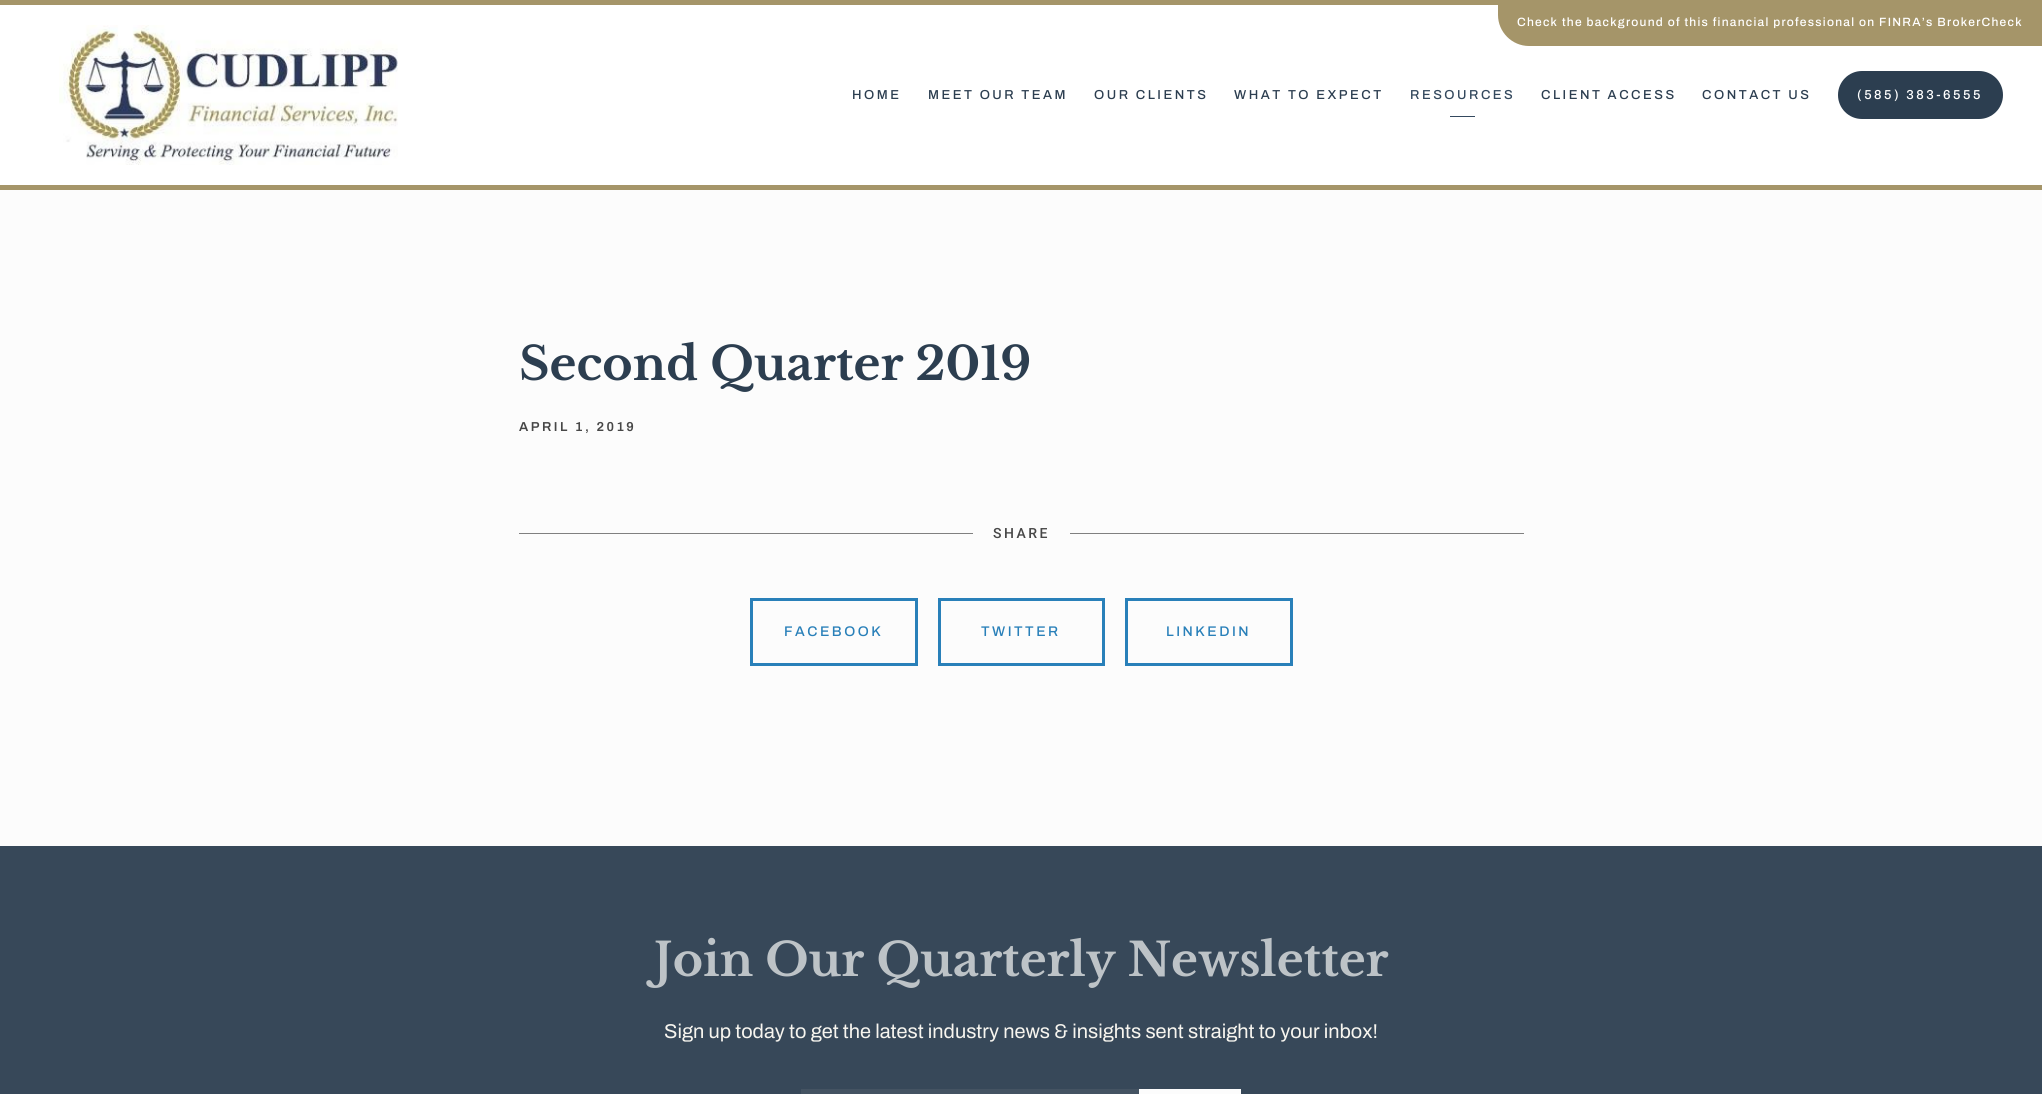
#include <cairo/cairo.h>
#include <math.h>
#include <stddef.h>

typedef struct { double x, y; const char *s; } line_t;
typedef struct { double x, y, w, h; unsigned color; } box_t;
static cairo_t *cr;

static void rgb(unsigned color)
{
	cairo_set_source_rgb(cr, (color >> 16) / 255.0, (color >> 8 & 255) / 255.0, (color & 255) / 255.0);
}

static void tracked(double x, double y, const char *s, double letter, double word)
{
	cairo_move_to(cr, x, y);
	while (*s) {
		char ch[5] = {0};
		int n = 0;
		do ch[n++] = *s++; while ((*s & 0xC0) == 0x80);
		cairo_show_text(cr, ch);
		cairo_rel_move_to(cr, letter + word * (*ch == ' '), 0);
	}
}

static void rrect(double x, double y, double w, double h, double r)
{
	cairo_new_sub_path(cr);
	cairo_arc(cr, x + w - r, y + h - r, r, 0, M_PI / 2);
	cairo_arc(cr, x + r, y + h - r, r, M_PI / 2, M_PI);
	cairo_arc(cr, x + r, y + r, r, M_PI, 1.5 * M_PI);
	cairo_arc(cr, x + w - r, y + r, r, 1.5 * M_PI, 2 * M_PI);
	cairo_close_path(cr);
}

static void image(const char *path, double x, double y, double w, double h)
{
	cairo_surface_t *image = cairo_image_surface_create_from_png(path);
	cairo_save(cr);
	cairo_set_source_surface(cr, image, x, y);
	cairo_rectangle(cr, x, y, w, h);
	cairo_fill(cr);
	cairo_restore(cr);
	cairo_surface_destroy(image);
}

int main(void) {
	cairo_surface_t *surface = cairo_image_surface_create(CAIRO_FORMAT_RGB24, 2042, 1094);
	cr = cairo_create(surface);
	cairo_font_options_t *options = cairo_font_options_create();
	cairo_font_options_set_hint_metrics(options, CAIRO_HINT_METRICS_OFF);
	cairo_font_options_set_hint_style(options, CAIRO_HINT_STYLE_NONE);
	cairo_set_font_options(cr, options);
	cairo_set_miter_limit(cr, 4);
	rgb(0xfcfcfc);
	cairo_paint(cr);
	rgb(0xffffff);
	cairo_rectangle(cr, 0, 5, 2042, 180);
	cairo_fill(cr);
	rgb(0xa59569);
	cairo_new_path(cr);
	cairo_move_to(cr, 1498, 0);
	cairo_line_to(cr, 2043, 0);
	cairo_line_to(cr, 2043, 46);
	cairo_line_to(cr, 1529, 46);
	cairo_curve_to(cr, 1512, 46, 1498, 32, 1498, 15);
	cairo_close_path(cr);
	cairo_fill(cr);
	cairo_rectangle(cr, 0, 0, 1498, 5);
	cairo_fill(cr);
	cairo_rectangle(cr, 0, 185, 2042, 5);
	cairo_fill(cr);
	image("img/1.png", 59, 25, 339, 140);
	rgb(0x34495e);
	cairo_rectangle(cr, 1450, 116, 25, 1);
	cairo_fill(cr);
	rgb(0x2c3e50);
	rrect(1838, 71, 165, 48, 24);
	cairo_fill(cr);
	rgb(0x808080);
	cairo_rectangle(cr, 519, 533, 1005, 1);
	cairo_fill(cr);
	rgb(0xfcfcfc);
	cairo_rectangle(cr, 973, 533, 97, 1);
	cairo_fill(cr);
	cairo_rectangle(cr, 751.5, 599.5, 165, 65);
	rgb(0x2980b9);
	cairo_set_line_width(cr, 3);
	cairo_stroke(cr);
	cairo_rectangle(cr, 939.5, 599.5, 164, 65);
	cairo_stroke(cr);
	cairo_rectangle(cr, 1126.5, 599.5, 165, 65);
	cairo_stroke(cr);
	{
		static const box_t items[] = {
			{0, 846, 2042, 248, 0x374859},
			{801, 1089, 338, 5, 0x445362},
			{1139, 1089, 102, 5, 0xfcfcfc},
		};
		for (size_t i = 0; i < sizeof items / sizeof *items; i++) {
			rgb(items[i].color);
			cairo_rectangle(cr, items[i].x, items[i].y, items[i].w, items[i].h);
			cairo_fill(cr);
		}
	}
	cairo_select_font_face(cr, "Archivo Medium", CAIRO_FONT_SLANT_NORMAL, CAIRO_FONT_WEIGHT_NORMAL);
	cairo_set_font_size(cr, 12);
	rgb(0xffffff);
	tracked(1517, 26, "Check the background of this financial professional on FINRA’s BrokerCheck", 1.25, 0);
	cairo_set_font_size(cr, 13);
	rgb(0x2c3e50);
	{
		static const line_t items[] = {
			{852, 99, "HOME"},
			{928, 99, "MEET OUR TEAM"},
			{1094, 99, "OUR CLIENTS"},
			{1234, 99, "WHAT TO EXPECT"},
		};
		for (size_t i = 0; i < sizeof items / sizeof *items; i++) {
			tracked(items[i].x, items[i].y, items[i].s, 2.5, 0);
		}
	}
	rgb(0x34495e);
	tracked(1410, 99, "RESOURCES", 2.5, 0);
	rgb(0x2c3e50);
	tracked(1541, 99, "CLIENT ACCESS", 2.5, 0);
	tracked(1702, 99, "CONTACT US", 2.5, 0);
	rgb(0xffffff);
	tracked(1857, 99, "(585) 383-6555", 2.5, 0);
	cairo_select_font_face(cr, "Libre Baskerville", CAIRO_FONT_SLANT_NORMAL, CAIRO_FONT_WEIGHT_BOLD);
	cairo_set_font_size(cr, 46);
	rgb(0x2c3e50);
	cairo_move_to(cr, 519, 380);
	cairo_show_text(cr, "Second Quarter 2019");
	cairo_select_font_face(cr, "Archivo SemiBold", CAIRO_FONT_SLANT_NORMAL, CAIRO_FONT_WEIGHT_NORMAL);
	cairo_set_font_size(cr, 13);
	rgb(0x474747);
	tracked(519, 431, "APRIL 1, 2019", 2.5, 0);
	cairo_select_font_face(cr, "Roboto Medium", CAIRO_FONT_SLANT_NORMAL, CAIRO_FONT_WEIGHT_NORMAL);
	cairo_set_font_size(cr, 14);
	tracked(993, 538, "SHARE", 2.5, 0);
	cairo_select_font_face(cr, "Archivo Medium", CAIRO_FONT_SLANT_NORMAL, CAIRO_FONT_WEIGHT_NORMAL);
	rgb(0x2980b9);
	{
		static const line_t items[] = {
			{784, 636, "FACEBOOK"},
			{981, 636, "TWITTER"},
			{1166, 636, "LINKEDIN"},
		};
		for (size_t i = 0; i < sizeof items / sizeof *items; i++) {
			tracked(items[i].x, items[i].y, items[i].s, 2.5, 0);
		}
	}
	cairo_select_font_face(cr, "Libre Baskerville", CAIRO_FONT_SLANT_NORMAL, CAIRO_FONT_WEIGHT_BOLD);
	cairo_set_font_size(cr, 46);
	rgb(0xbdc3c7);
	cairo_move_to(cr, 654, 976);
	cairo_show_text(cr, "Join Our Quarterly Newsletter");
	cairo_select_font_face(cr, "Archivo", CAIRO_FONT_SLANT_NORMAL, CAIRO_FONT_WEIGHT_NORMAL);
	cairo_set_font_size(cr, 20);
	rgb(0xf7f5ef);
	cairo_move_to(cr, 664, 1038);
	cairo_show_text(cr, "Sign up today to get the latest industry news & insights sent straight to your inbox!");
	cairo_surface_write_to_png(surface, "page.png");
	cairo_font_options_destroy(options);
	cairo_destroy(cr);
	cairo_surface_destroy(surface);
	return 0;
}
